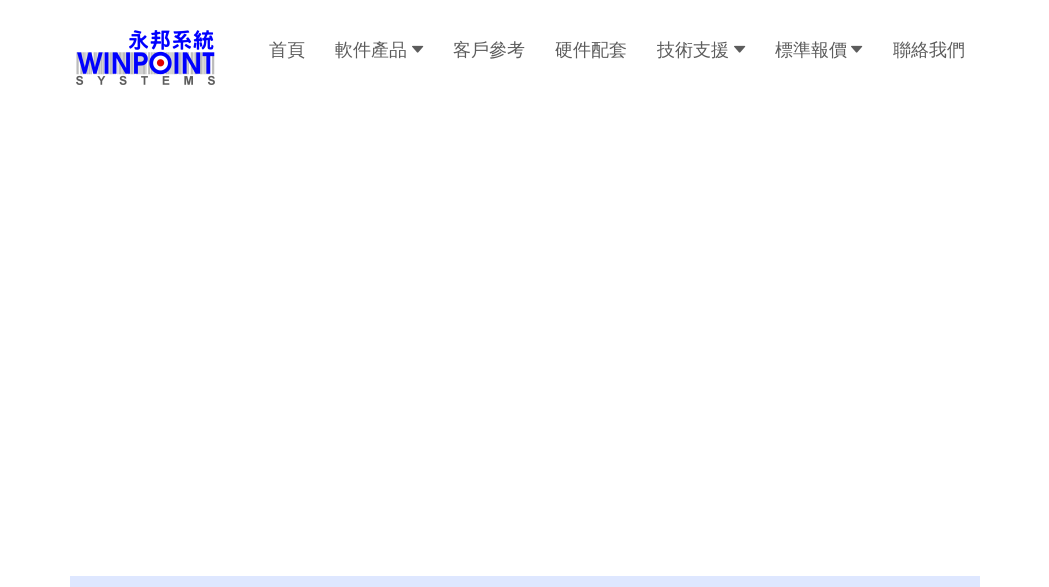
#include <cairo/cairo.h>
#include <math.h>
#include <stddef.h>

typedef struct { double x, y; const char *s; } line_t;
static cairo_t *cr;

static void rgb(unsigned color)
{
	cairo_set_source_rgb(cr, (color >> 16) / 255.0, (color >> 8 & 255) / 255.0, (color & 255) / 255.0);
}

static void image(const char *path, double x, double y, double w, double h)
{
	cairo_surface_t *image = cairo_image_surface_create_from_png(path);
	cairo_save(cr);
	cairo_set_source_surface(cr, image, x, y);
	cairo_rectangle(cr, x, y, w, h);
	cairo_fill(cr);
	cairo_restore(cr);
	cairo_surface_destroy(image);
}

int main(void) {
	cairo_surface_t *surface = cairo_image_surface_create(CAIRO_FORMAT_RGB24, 1049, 587);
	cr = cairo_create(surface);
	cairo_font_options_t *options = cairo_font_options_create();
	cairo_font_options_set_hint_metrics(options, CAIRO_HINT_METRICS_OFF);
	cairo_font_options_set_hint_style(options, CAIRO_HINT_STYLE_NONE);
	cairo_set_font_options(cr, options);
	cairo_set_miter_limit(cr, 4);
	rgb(0xffffff);
	cairo_paint(cr);
	image("img/1.png", 76, 30, 139, 55);
	image("img/2.png", 412, 45, 12, 8);
	image("img/2.png", 734, 45, 12, 8);
	image("img/2.png", 851, 45, 12, 8);
	rgb(0xdee7ff);
	cairo_rectangle(cr, 70, 576, 910, 11);
	cairo_fill(cr);
	cairo_select_font_face(cr, "WenQuanYi Zen Hei Medium", CAIRO_FONT_SLANT_NORMAL, CAIRO_FONT_WEIGHT_NORMAL);
	cairo_set_font_size(cr, 18);
	rgb(0x5c5c5c);
	{
		static const line_t items[] = {
			{269, 56, "首頁"},
			{335, 56, "軟件產品"},
			{453, 56, "客戶參考"},
			{555, 56, "硬件配套"},
			{657, 56, "技術支援"},
			{775, 56, "標準報價"},
			{893, 56, "聯絡我們"},
		};
		for (size_t i = 0; i < sizeof items / sizeof *items; i++) {
			cairo_move_to(cr, items[i].x, items[i].y);
			cairo_show_text(cr, items[i].s);
		}
	}
	cairo_surface_write_to_png(surface, "page.png");
	cairo_font_options_destroy(options);
	cairo_destroy(cr);
	cairo_surface_destroy(surface);
	return 0;
}
